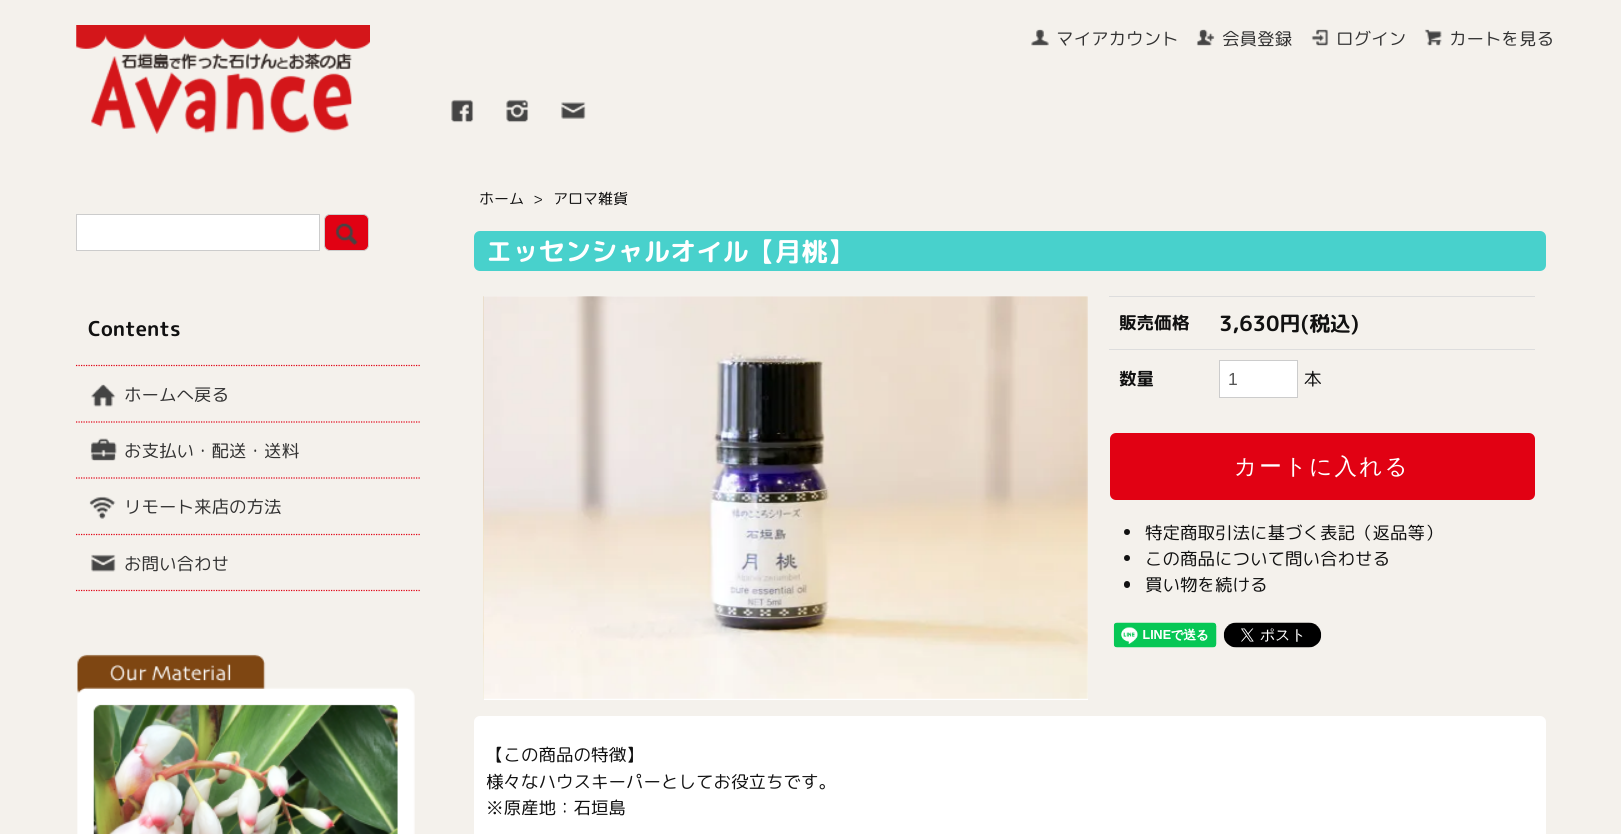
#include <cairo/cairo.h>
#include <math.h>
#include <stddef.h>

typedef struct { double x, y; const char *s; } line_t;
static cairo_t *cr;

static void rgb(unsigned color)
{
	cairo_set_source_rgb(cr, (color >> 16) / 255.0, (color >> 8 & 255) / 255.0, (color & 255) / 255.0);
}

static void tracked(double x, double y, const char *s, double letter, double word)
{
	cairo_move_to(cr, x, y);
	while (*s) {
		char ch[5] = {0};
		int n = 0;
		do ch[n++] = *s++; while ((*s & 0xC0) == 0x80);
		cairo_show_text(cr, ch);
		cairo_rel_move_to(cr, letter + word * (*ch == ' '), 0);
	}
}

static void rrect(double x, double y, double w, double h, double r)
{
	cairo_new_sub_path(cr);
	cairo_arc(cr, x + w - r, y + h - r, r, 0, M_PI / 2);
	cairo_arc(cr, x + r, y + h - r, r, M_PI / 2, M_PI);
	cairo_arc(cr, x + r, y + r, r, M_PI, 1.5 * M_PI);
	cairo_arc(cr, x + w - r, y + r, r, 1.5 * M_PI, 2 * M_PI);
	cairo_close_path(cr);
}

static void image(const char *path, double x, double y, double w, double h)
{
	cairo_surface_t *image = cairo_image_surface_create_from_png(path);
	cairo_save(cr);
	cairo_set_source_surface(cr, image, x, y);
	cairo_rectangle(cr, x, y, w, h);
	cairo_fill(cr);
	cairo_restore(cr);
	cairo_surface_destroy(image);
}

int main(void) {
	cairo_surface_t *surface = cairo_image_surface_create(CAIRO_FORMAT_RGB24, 1621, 834);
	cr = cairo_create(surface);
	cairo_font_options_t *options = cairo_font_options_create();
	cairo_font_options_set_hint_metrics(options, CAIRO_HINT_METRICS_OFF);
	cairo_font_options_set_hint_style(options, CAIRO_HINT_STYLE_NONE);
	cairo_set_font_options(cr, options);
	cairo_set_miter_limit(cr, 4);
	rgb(0xf4f1ec);
	cairo_paint(cr);
	image("img/1.png", 76, 25, 294, 109);
	image("img/2.png", 1031, 29, 18, 17);
	image("img/3.png", 1196, 29, 19, 17);
	image("img/4.png", 1311, 29, 18, 17);
	image("img/5.png", 1424, 29, 18, 17);
	image("img/6.png", 451, 99, 23, 24);
	image("img/7.png", 506, 99, 23, 24);
	image("img/8.png", 561, 102, 25, 17);
	rgb(0xffffff);
	cairo_rectangle(cr, 76.5, 214.5, 243, 36);
	cairo_fill_preserve(cr);
	rgb(0xcccccc);
	cairo_set_line_width(cr, 1);
	cairo_stroke(cr);
	rgb(0xe10113);
	rrect(324.5, 214.5, 44, 36, 5.5);
	cairo_fill_preserve(cr);
	rgb(0xcccccc);
	cairo_stroke(cr);
	image("img/9.png", 335, 222, 23, 24);
	cairo_new_path(cr);
	cairo_move_to(cr, 76, 590.5);
	cairo_line_to(cr, 421, 590.5);
	rgb(0xe10113);
	cairo_set_line_width(cr, 1.2);
	cairo_set_dash(cr, (double[]){1.25, 1.25}, 2, 0);
	cairo_stroke(cr);
	cairo_new_path(cr);
	cairo_move_to(cr, 76, 365.5);
	cairo_line_to(cr, 421, 365.5);
	cairo_stroke(cr);
	image("img/10.png", 91, 384, 25, 23);
	cairo_new_path(cr);
	cairo_move_to(cr, 76, 422);
	cairo_line_to(cr, 421, 422);
	cairo_stroke(cr);
	image("img/11.png", 90, 438, 27, 23);
	cairo_new_path(cr);
	cairo_move_to(cr, 76, 478);
	cairo_line_to(cr, 421, 478);
	cairo_stroke(cr);
	image("img/12.png", 89, 496, 27, 23);
	cairo_new_path(cr);
	cairo_move_to(cr, 76, 534.5);
	cairo_line_to(cr, 421, 534.5);
	cairo_stroke(cr);
	image("img/13.png", 91, 554, 25, 18);
	image("img/14.png", 77, 654, 338, 180);
	rgb(0x48d1cc);
	rrect(474, 231, 1072, 40, 6);
	cairo_fill(cr);
	rgb(0xffffff);
	cairo_rectangle(cr, 484, 296, 604, 404);
	cairo_fill(cr);
	image("img/15.png", 483, 296, 1, 403);
	image("img/16.png", 484, 296, 604, 403);
	rgb(0xdddddd);
	cairo_rectangle(cr, 1109, 296, 426, 1);
	cairo_fill(cr);
	cairo_rectangle(cr, 1109, 349, 426, 1);
	cairo_fill(cr);
	rgb(0xffffff);
	cairo_rectangle(cr, 1219.5, 360.5, 78, 37);
	cairo_fill_preserve(cr);
	rgb(0xcccccc);
	cairo_set_line_width(cr, 1);
	cairo_set_dash(cr, NULL, 0, 0);
	cairo_stroke(cr);
	rgb(0xe10113);
	rrect(1110, 433, 425, 67, 6);
	cairo_fill(cr);
	rgb(0x111111);
	cairo_arc(cr, 1127, 532, 3, 0, 2 * M_PI);
	cairo_fill(cr);
	cairo_arc(cr, 1127, 558, 3, 0, 2 * M_PI);
	cairo_fill(cr);
	rrect(1124, 581, 6, 7, 3);
	cairo_fill(cr);
	image("img/17.png", 1113, 622, 104, 26);
	image("img/18.png", 1223, 622, 99, 26);
	rgb(0xffffff);
	rrect(474, 716, 1072, 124, 6);
	cairo_fill(cr);
	cairo_select_font_face(cr, "Rounded Mplus 1c", CAIRO_FONT_SLANT_NORMAL, CAIRO_FONT_WEIGHT_NORMAL);
	cairo_set_font_size(cr, 17.5);
	rgb(0x333333);
	{
		static const line_t items[] = {
			{1056, 45, "マイアカウント"},
			{1222, 45, "会員登録"},
			{1336, 45, "ログイン"},
			{1449, 45, "カートを見る"},
		};
		for (size_t i = 0; i < sizeof items / sizeof *items; i++) {
			cairo_move_to(cr, items[i].x, items[i].y);
			cairo_show_text(cr, items[i].s);
		}
	}
	cairo_select_font_face(cr, "Rounded Mplus 1c Bold", CAIRO_FONT_SLANT_NORMAL, CAIRO_FONT_WEIGHT_BOLD);
	cairo_set_font_size(cr, 20.5);
	rgb(0x111111);
	cairo_move_to(cr, 88, 336);
	cairo_show_text(cr, "Contents");
	cairo_select_font_face(cr, "Rounded Mplus 1c", CAIRO_FONT_SLANT_NORMAL, CAIRO_FONT_WEIGHT_NORMAL);
	cairo_set_font_size(cr, 17.5);
	rgb(0x333333);
	{
		static const line_t items[] = {
			{124, 401, "ホームへ戻る"},
			{124, 457, "お支払い・配送・送料"},
			{124, 513, "リモート来店の方法"},
			{124, 570, "お問い合わせ"},
		};
		for (size_t i = 0; i < sizeof items / sizeof *items; i++) {
			cairo_move_to(cr, items[i].x, items[i].y);
			cairo_show_text(cr, items[i].s);
		}
	}
	cairo_set_font_size(cr, 15);
	rgb(0x111111);
	{
		static const line_t items[] = {
			{479, 204, "ホーム"},
			{533, 204, ">"},
			{553, 204, "アロマ雑貨"},
		};
		for (size_t i = 0; i < sizeof items / sizeof *items; i++) {
			cairo_move_to(cr, items[i].x, items[i].y);
			cairo_show_text(cr, items[i].s);
		}
	}
	cairo_select_font_face(cr, "Rounded Mplus 1c Bold", CAIRO_FONT_SLANT_NORMAL, CAIRO_FONT_WEIGHT_BOLD);
	cairo_set_font_size(cr, 26.25);
	rgb(0xffffff);
	cairo_move_to(cr, 486, 261);
	cairo_show_text(cr, "エッセンシャルオイル【月桃】");
	cairo_set_font_size(cr, 17.5);
	rgb(0x111111);
	cairo_move_to(cr, 1119, 329);
	cairo_show_text(cr, "販売価格");
	cairo_set_font_size(cr, 21);
	cairo_move_to(cr, 1219, 331);
	cairo_show_text(cr, "3,630円(税込)");
	cairo_set_font_size(cr, 17.5);
	cairo_move_to(cr, 1119, 385);
	cairo_show_text(cr, "数量");
	cairo_select_font_face(cr, "Liberation Sans", CAIRO_FONT_SLANT_NORMAL, CAIRO_FONT_WEIGHT_NORMAL);
	rgb(0x555555);
	cairo_move_to(cr, 1228, 385);
	cairo_show_text(cr, "1");
	cairo_select_font_face(cr, "Rounded Mplus 1c", CAIRO_FONT_SLANT_NORMAL, CAIRO_FONT_WEIGHT_NORMAL);
	rgb(0x111111);
	cairo_move_to(cr, 1304, 385);
	cairo_show_text(cr, "本");
	cairo_select_font_face(cr, "WenQuanYi Zen Hei Medium", CAIRO_FONT_SLANT_NORMAL, CAIRO_FONT_WEIGHT_NORMAL);
	cairo_set_font_size(cr, 22.5);
	rgb(0xffffff);
	tracked(1234, 474, "カートに入れる", 2.25, 0);
	cairo_select_font_face(cr, "Rounded Mplus 1c", CAIRO_FONT_SLANT_NORMAL, CAIRO_FONT_WEIGHT_NORMAL);
	cairo_set_font_size(cr, 17.5);
	rgb(0x111111);
	{
		static const line_t items[] = {
			{1145, 539, "特定商取引法に基づく表記（返品等）"},
			{1145, 565, "この商品について問い合わせる"},
			{1145, 591, "買い物を続ける"},
			{486, 761, "【この商品の特徴】"},
			{486, 788, "様々なハウスキーパーとしてお役立ちです。"},
			{486, 814, "※原産地：石垣島"},
		};
		for (size_t i = 0; i < sizeof items / sizeof *items; i++) {
			cairo_move_to(cr, items[i].x, items[i].y);
			cairo_show_text(cr, items[i].s);
		}
	}
	cairo_surface_write_to_png(surface, "page.png");
	cairo_font_options_destroy(options);
	cairo_destroy(cr);
	cairo_surface_destroy(surface);
	return 0;
}
